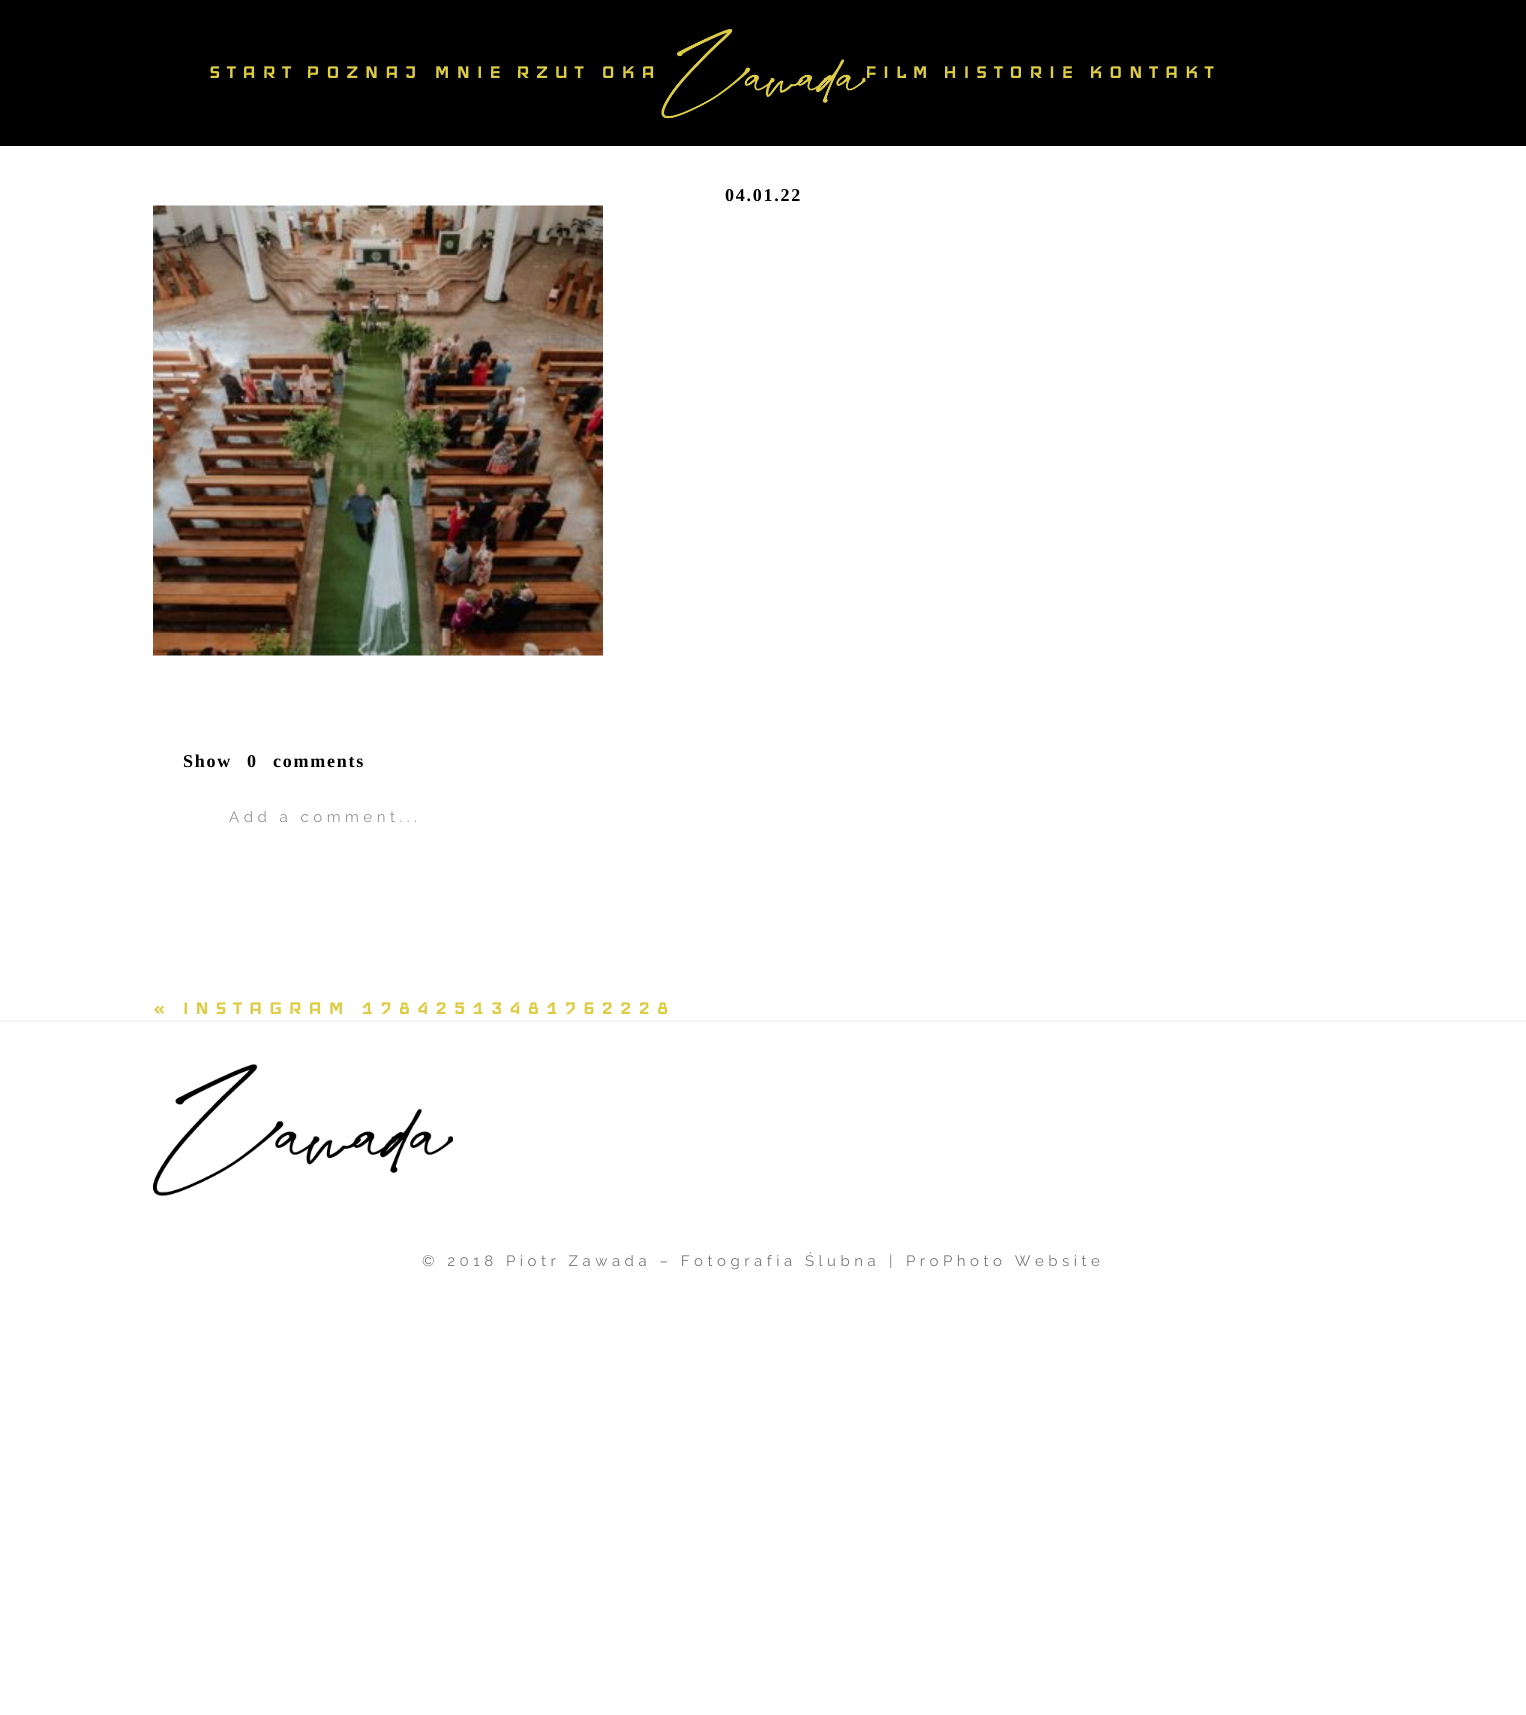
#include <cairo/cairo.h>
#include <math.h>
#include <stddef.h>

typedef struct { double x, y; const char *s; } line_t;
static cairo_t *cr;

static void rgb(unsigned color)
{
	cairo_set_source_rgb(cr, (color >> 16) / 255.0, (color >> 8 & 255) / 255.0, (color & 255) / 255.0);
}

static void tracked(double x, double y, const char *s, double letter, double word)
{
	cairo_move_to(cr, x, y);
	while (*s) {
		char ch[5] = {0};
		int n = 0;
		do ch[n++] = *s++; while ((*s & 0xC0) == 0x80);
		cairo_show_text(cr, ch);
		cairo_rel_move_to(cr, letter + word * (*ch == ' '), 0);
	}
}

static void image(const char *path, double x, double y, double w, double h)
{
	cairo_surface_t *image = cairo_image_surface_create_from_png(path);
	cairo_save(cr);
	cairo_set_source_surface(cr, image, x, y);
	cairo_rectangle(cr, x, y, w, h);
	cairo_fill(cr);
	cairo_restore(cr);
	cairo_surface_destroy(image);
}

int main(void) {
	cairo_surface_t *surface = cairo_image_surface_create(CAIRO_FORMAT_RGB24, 1526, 1715);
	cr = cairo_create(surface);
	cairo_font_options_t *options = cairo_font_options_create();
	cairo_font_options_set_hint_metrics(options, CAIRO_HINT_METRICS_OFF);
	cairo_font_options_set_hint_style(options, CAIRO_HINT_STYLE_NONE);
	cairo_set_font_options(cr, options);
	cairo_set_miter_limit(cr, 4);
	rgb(0xffffff);
	cairo_paint(cr);
	rgb(0x000000);
	cairo_rectangle(cr, 0, 0, 1526, 146);
	cairo_fill(cr);
	image("img/1.png", 661, 29, 205, 90);
	image("img/2.png", 153, 205, 450, 451);
	rgb(0xf5f5f5);
	cairo_rectangle(cr, 0, 1020, 1526, 2);
	cairo_fill(cr);
	image("img/3.png", 153, 1064, 300, 133);
	cairo_select_font_face(cr, "Iceland", CAIRO_FONT_SLANT_NORMAL, CAIRO_FONT_WEIGHT_BOLD);
	cairo_set_font_size(cr, 22.5);
	rgb(0xddcc46);
	{
		static const line_t items[] = {
			{209, 78, "START"},
			{306, 78, "POZNAJ MNIE"},
			{516, 78, "RZUT OKA"},
			{865, 78, "FILM"},
			{943, 78, "HISTORIE"},
			{1089, 78, "KONTAKT"},
		};
		for (size_t i = 0; i < sizeof items / sizeof *items; i++) {
			tracked(items[i].x, items[i].y, items[i].s, 6.75, 0);
		}
	}
	cairo_select_font_face(cr, "Liberation Serif", CAIRO_FONT_SLANT_NORMAL, CAIRO_FONT_WEIGHT_BOLD);
	cairo_set_font_size(cr, 18);
	rgb(0x000000);
	tracked(725, 201, "04.01.22", 1.75, 0);
	tracked(183, 767, "Show", 1.75, 0);
	tracked(247, 767, "0 comments", 1.75, 9);
	cairo_select_font_face(cr, "Raleway Thin", CAIRO_FONT_SLANT_NORMAL, CAIRO_FONT_WEIGHT_NORMAL);
	cairo_set_font_size(cr, 15);
	rgb(0x939393);
	tracked(229, 822, "Add a comment...", 4.5, 0);
	cairo_select_font_face(cr, "Iceland", CAIRO_FONT_SLANT_NORMAL, CAIRO_FONT_WEIGHT_BOLD);
	cairo_set_font_size(cr, 22.5);
	rgb(0xddcc46);
	tracked(153, 1014, "« INSTAGRAM 17842513481762228", 6.75, 0);
	cairo_select_font_face(cr, "Raleway Thin", CAIRO_FONT_SLANT_NORMAL, CAIRO_FONT_WEIGHT_NORMAL);
	cairo_set_font_size(cr, 15);
	rgb(0x787878);
	{
		static const line_t items[] = {
			{422, 1266, "© 2018 Piotr Zawada – Fotografia Ślubna"},
			{889, 1266, "|"},
			{906, 1266, "ProPhoto Website"},
		};
		for (size_t i = 0; i < sizeof items / sizeof *items; i++) {
			tracked(items[i].x, items[i].y, items[i].s, 4.5, 0);
		}
	}
	cairo_surface_write_to_png(surface, "page.png");
	cairo_font_options_destroy(options);
	cairo_destroy(cr);
	cairo_surface_destroy(surface);
	return 0;
}
